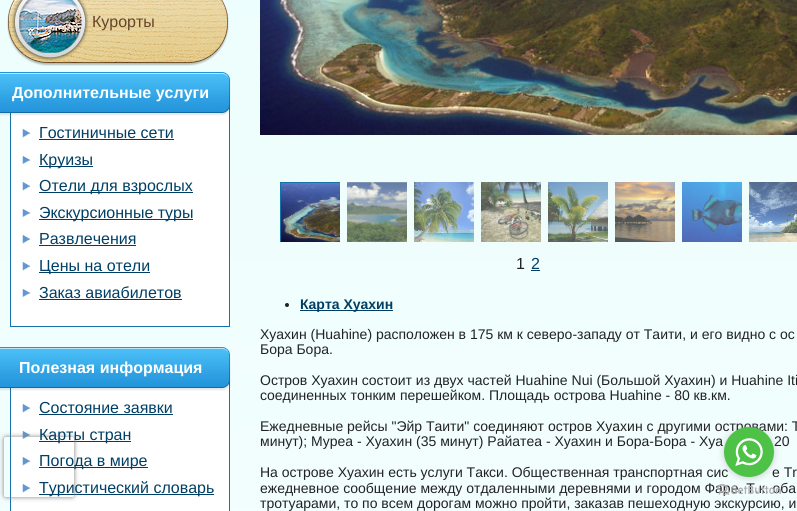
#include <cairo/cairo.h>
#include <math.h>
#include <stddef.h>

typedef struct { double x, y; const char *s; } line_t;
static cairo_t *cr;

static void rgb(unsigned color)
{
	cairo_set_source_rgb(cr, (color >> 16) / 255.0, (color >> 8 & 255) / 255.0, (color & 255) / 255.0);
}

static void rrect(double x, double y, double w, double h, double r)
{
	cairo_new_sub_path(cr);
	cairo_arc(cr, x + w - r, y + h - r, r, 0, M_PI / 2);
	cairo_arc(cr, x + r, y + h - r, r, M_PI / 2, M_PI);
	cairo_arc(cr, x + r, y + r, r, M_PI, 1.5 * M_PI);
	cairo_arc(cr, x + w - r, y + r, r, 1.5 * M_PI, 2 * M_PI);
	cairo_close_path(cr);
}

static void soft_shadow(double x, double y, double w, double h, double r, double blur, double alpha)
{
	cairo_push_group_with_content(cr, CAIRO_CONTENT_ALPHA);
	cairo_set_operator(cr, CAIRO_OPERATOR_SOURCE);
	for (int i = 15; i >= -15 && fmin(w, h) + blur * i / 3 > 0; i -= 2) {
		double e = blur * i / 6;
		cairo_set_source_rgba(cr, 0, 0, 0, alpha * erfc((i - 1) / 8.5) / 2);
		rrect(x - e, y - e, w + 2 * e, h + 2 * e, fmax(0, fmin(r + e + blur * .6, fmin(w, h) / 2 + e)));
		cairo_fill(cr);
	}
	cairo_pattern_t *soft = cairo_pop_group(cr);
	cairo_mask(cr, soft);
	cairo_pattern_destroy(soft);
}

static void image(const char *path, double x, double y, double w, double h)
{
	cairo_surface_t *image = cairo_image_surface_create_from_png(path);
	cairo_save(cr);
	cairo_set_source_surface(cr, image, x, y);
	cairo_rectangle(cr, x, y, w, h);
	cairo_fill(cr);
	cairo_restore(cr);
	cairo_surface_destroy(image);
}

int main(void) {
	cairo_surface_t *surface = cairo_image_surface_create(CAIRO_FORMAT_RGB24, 797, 511);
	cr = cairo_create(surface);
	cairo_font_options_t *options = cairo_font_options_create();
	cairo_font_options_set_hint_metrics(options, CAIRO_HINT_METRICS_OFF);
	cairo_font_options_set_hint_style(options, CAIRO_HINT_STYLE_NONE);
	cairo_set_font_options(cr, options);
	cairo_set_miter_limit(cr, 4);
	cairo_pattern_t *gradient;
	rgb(0xffffff);
	cairo_paint(cr);
	gradient = cairo_pattern_create_linear(610, -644, 610, 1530);
	cairo_pattern_add_color_stop_rgba(gradient, 0, 0.604, 0.804, 0.933, 1);
	cairo_pattern_add_color_stop_rgba(gradient, 0.14, 0.733, 0.969, 0.984, 1);
	cairo_pattern_add_color_stop_rgba(gradient, 0.28, 0.925, 0.996, 0.992, 1);
	cairo_pattern_add_color_stop_rgba(gradient, 1, 1, 1, 1, 1);
	cairo_set_source(cr, gradient);
	cairo_pattern_destroy(gradient);
	cairo_rectangle(cr, 0, 0, 797, 511);
	cairo_fill(cr);
	image("img/1.png", 7, 0, 222, 66);
	image("img/2.png", 19, 0, 63, 53);
	rgb(0xffffff);
	cairo_rectangle(cr, 11, 108, 218, 218);
	cairo_fill(cr);
	cairo_rectangle(cr, 10.5, 104.5, 219, 222);
	rgb(0x1572aa);
	cairo_set_line_width(cr, 1);
	cairo_stroke(cr);
	image("img/3.png", 0, 72, 231, 44);
	image("img/4.png", 22, 129, 9, 9);
	rgb(0x003f65);
	cairo_rectangle(cr, 39, 139, 135, 1);
	cairo_fill(cr);
	image("img/5.png", 22, 156, 9, 8);
	cairo_rectangle(cr, 39, 166, 54, 1);
	cairo_fill(cr);
	image("img/4.png", 22, 182, 9, 9);
	cairo_rectangle(cr, 39, 192, 154, 1);
	cairo_fill(cr);
	image("img/5.png", 22, 209, 9, 8);
	cairo_rectangle(cr, 39, 219, 154, 1);
	cairo_fill(cr);
	image("img/4.png", 22, 235, 9, 9);
	cairo_rectangle(cr, 39, 245, 97, 1);
	cairo_fill(cr);
	image("img/4.png", 22, 262, 9, 9);
	cairo_rectangle(cr, 39, 272, 111, 1);
	cairo_fill(cr);
	image("img/5.png", 22, 289, 9, 8);
	cairo_rectangle(cr, 39, 299, 143, 1);
	cairo_fill(cr);
	rgb(0xffffff);
	cairo_rectangle(cr, 11, 383, 218, 128);
	cairo_fill(cr);
	cairo_rectangle(cr, 10.5, 379.5, 219, 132);
	rgb(0x1572aa);
	cairo_stroke(cr);
	image("img/6.png", 0, 347, 231, 44);
	image("img/4.png", 22, 404, 9, 9);
	rgb(0x003f65);
	cairo_rectangle(cr, 39, 414, 134, 1);
	cairo_fill(cr);
	image("img/5.png", 22, 431, 9, 8);
	cairo_rectangle(cr, 39, 441, 92, 1);
	cairo_fill(cr);
	image("img/4.png", 22, 457, 9, 9);
	cairo_rectangle(cr, 39, 467, 109, 1);
	cairo_fill(cr);
	image("img/4.png", 22, 484, 9, 9);
	cairo_rectangle(cr, 39, 494, 175, 1);
	cairo_fill(cr);
	cairo_save(cr);
	cairo_set_fill_rule(cr, CAIRO_FILL_RULE_EVEN_ODD);
	cairo_new_path(cr);
	cairo_move_to(cr, 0, 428);
	cairo_line_to(cr, 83, 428);
	cairo_line_to(cr, 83, 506);
	cairo_line_to(cr, 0, 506);
	cairo_close_path(cr);
	cairo_move_to(cr, 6, 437);
	cairo_line_to(cr, 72, 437);
	cairo_curve_to(cr, 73, 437, 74, 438, 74, 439);
	cairo_line_to(cr, 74, 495);
	cairo_curve_to(cr, 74, 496, 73, 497, 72, 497);
	cairo_line_to(cr, 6, 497);
	cairo_curve_to(cr, 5, 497, 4, 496, 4, 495);
	cairo_line_to(cr, 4, 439);
	cairo_curve_to(cr, 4, 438, 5, 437, 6, 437);
	cairo_close_path(cr);
	cairo_clip(cr);
	rgb(0x808080);
	soft_shadow(4, 437, 70, 60, 2, 2.5, 1);
	cairo_restore(cr);
	image("img/7.png", 260, 0, 537, 135);
	cairo_save(cr);
	cairo_rectangle(cr, 280, 182, 60, 60);
	cairo_clip(cr);
	cairo_rectangle(cr, 280.5, 182.5, 100, 61);
	rgb(0x1572aa);
	cairo_stroke(cr);
	cairo_restore(cr);
	image("img/8.png", 281, 183, 59, 59);
	image("img/9.png", 347, 182, 60, 60);
	image("img/10.png", 414, 182, 60, 60);
	image("img/11.png", 481, 182, 60, 60);
	image("img/12.png", 548, 182, 60, 60);
	image("img/13.png", 615, 182, 60, 60);
	image("img/14.png", 682, 182, 60, 60);
	image("img/15.png", 749, 182, 48, 60);
	cairo_rectangle(cr, 531, 270, 9, 1);
	cairo_fill(cr);
	rgb(0x222222);
	cairo_arc(cr, 287, 305, 2, 0, 2 * M_PI);
	cairo_fill(cr);
	rgb(0x003f65);
	cairo_rectangle(cr, 300, 310, 93, 1);
	cairo_fill(cr);
	cairo_select_font_face(cr, "Liberation Sans", CAIRO_FONT_SLANT_NORMAL, CAIRO_FONT_WEIGHT_NORMAL);
	cairo_set_font_size(cr, 16);
	rgb(0x654427);
	cairo_move_to(cr, 92, 27);
	cairo_show_text(cr, "Курорты");
	cairo_select_font_face(cr, "Liberation Sans", CAIRO_FONT_SLANT_NORMAL, CAIRO_FONT_WEIGHT_BOLD);
	rgb(0xffffff);
	cairo_move_to(cr, 12, 98);
	cairo_show_text(cr, "Дополнительные услуги");
	cairo_select_font_face(cr, "Liberation Sans", CAIRO_FONT_SLANT_NORMAL, CAIRO_FONT_WEIGHT_NORMAL);
	rgb(0x003f65);
	{
		static const line_t items[] = {
			{39, 138, "Гостиничные сети"},
			{39, 165, "Круизы"},
			{39, 191, "Отели для взрослых"},
			{39, 218, "Экскурсионные туры"},
			{39, 244, "Развлечения"},
			{39, 271, "Цены на отели"},
			{39, 298, "Заказ авиабилетов"},
		};
		for (size_t i = 0; i < sizeof items / sizeof *items; i++) {
			cairo_move_to(cr, items[i].x, items[i].y);
			cairo_show_text(cr, items[i].s);
		}
	}
	cairo_select_font_face(cr, "Liberation Sans", CAIRO_FONT_SLANT_NORMAL, CAIRO_FONT_WEIGHT_BOLD);
	rgb(0xffffff);
	cairo_move_to(cr, 19, 373);
	cairo_show_text(cr, "Полезная информация");
	cairo_select_font_face(cr, "Liberation Sans", CAIRO_FONT_SLANT_NORMAL, CAIRO_FONT_WEIGHT_NORMAL);
	rgb(0x003f65);
	{
		static const line_t items[] = {
			{39, 413, "Состояние заявки"},
			{39, 440, "Карты стран"},
			{39, 466, "Погода в мире"},
			{39, 493, "Туристический словарь"},
		};
		for (size_t i = 0; i < sizeof items / sizeof *items; i++) {
			cairo_move_to(cr, items[i].x, items[i].y);
			cairo_show_text(cr, items[i].s);
		}
	}
	rgb(0x222222);
	cairo_move_to(cr, 516, 269);
	cairo_show_text(cr, "1");
	rgb(0x003f65);
	cairo_move_to(cr, 531, 269);
	cairo_show_text(cr, "2");
	cairo_select_font_face(cr, "Liberation Sans", CAIRO_FONT_SLANT_NORMAL, CAIRO_FONT_WEIGHT_BOLD);
	cairo_set_font_size(cr, 14);
	cairo_move_to(cr, 300, 309);
	cairo_show_text(cr, "Карта Хуахин");
	cairo_select_font_face(cr, "Liberation Sans", CAIRO_FONT_SLANT_NORMAL, CAIRO_FONT_WEIGHT_NORMAL);
	rgb(0x222222);
	{
		static const line_t items[] = {
			{260, 339, "Хуахин (Huahine) расположен в 175 км к северо-западу от Таити, и его видно с ос"},
			{260, 354, "Бора Бора."},
			{260, 385, "Остров Хуахин состоит из двух частей Huahine Nui (Большой Хуахин) и Huahine Iti"},
			{260, 400, "соединенных тонким перешейком. Площадь острова Huahine - 80 кв.км."},
			{260, 431, "Ежедневные рейсы \"Эйр Таити\" соединяют остров Хуахин с другими островами: Т"},
			{260, 446, "минут); Муреа - Хуахин (35 минут) Райатеа - Хуахин и Бора-Бора - Хуа"},
			{774, 446, "20"},
			{260, 477, "На острове Хуахин есть услуги Такси. Общественная транспортная сис"},
			{772, 477, "e Tr"},
			{260, 493, "ежедневное сообщение между отдаленными деревнями и городом Фаре. Т.к. оба"},
			{260, 508, "тротуарами, то по всем дорогам можно пройти, заказав пешеходную экскурсию, и"},
		};
		for (size_t i = 0; i < sizeof items / sizeof *items; i++) {
			cairo_move_to(cr, items[i].x, items[i].y);
			cairo_show_text(cr, items[i].s);
		}
	}
	image("img/17.png", 717, 484, 64, 11);
	rgb(0x888888);
	soft_shadow(724, 428, 50, 50, 25, 3.5, 0.4);
	rgb(0x4dc247);
	cairo_arc(cr, 749, 452, 25, 0, 2 * M_PI);
	cairo_fill(cr);
	image("img/16.png", 735, 438, 28, 28);
	cairo_surface_write_to_png(surface, "page.png");
	cairo_font_options_destroy(options);
	cairo_destroy(cr);
	cairo_surface_destroy(surface);
	return 0;
}
